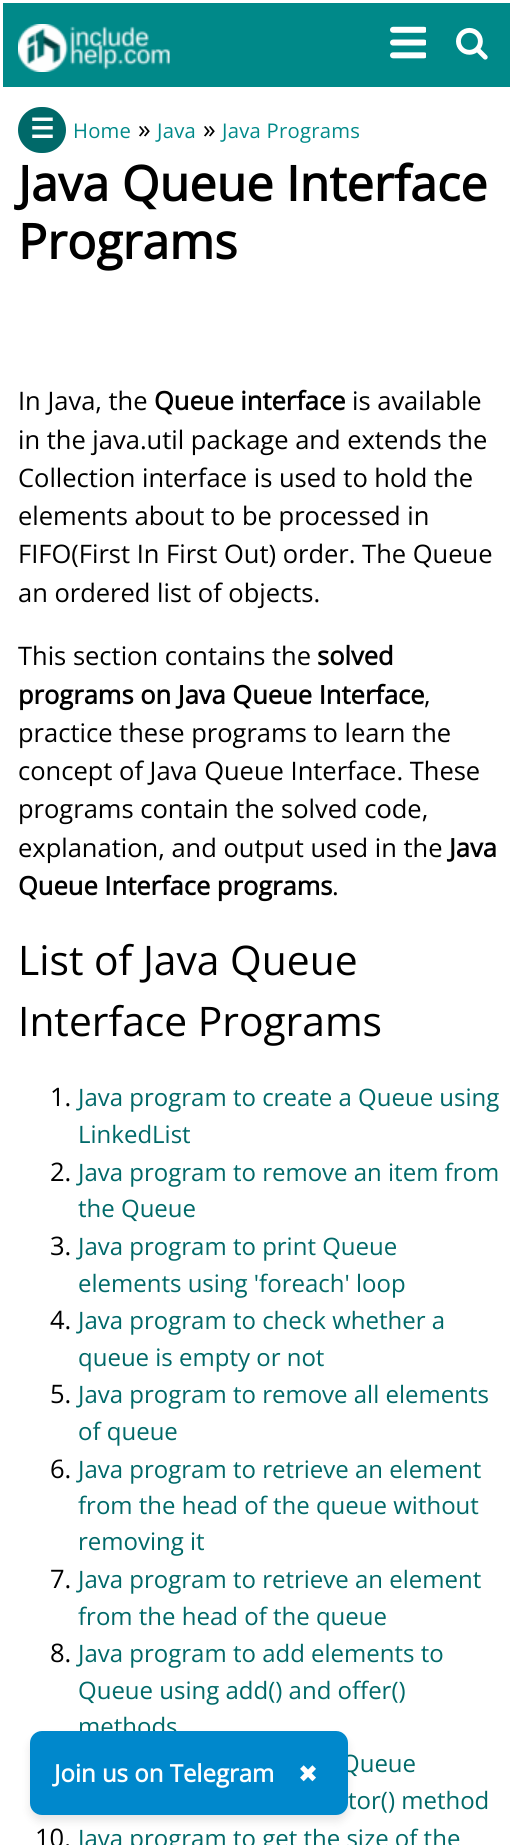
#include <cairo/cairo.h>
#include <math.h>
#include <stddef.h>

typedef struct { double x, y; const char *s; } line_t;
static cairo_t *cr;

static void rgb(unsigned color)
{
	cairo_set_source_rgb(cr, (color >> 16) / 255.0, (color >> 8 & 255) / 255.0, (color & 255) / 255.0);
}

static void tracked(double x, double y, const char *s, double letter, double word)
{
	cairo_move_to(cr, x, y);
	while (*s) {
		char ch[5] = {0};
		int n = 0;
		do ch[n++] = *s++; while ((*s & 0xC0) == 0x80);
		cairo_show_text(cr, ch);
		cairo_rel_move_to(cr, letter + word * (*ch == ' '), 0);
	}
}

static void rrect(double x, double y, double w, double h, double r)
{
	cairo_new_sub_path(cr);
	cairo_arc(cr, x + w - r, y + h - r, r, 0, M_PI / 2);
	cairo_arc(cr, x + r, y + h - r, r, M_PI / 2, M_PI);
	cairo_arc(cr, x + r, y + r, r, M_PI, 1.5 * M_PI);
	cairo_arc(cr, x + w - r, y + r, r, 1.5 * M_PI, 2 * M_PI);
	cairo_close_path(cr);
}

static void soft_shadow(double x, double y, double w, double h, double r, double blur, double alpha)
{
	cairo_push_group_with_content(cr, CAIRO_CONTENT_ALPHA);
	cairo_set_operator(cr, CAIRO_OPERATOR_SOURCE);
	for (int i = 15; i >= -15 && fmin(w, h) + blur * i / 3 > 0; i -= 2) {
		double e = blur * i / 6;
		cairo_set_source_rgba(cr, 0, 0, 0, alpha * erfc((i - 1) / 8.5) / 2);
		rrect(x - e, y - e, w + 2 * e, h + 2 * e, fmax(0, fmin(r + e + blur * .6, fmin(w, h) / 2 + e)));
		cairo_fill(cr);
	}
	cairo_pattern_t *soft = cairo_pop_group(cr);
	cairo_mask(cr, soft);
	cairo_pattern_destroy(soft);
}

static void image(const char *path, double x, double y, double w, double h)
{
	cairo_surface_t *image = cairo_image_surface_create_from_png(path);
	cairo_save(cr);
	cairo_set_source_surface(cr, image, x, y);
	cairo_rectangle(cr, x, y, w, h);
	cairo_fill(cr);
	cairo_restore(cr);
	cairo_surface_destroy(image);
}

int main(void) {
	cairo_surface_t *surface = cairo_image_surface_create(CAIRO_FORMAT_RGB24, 512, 1845);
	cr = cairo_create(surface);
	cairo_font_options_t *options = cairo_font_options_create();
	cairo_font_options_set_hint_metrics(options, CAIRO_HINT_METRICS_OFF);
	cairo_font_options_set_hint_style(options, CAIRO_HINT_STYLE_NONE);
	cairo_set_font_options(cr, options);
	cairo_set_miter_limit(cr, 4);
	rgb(0xffffff);
	cairo_paint(cr);
	rgb(0x008989);
	cairo_rectangle(cr, 3, 3, 507, 84);
	cairo_fill(cr);
	image("img/1.png", 18, 24, 152, 48);
	image("img/2.png", 390, 26, 36, 33);
	image("img/3.png", 456, 27, 32, 33);
	rgb(0x006969);
	rrect(18, 107, 48, 46, 23);
	cairo_fill(cr);
	rgb(0x000000);
	soft_shadow(30, 1737, 318, 84, 12, 4.5, 0.1);
	cairo_select_font_face(cr, "DejaVu Sans", CAIRO_FONT_SLANT_NORMAL, CAIRO_FONT_WEIGHT_BOLD);
	cairo_set_font_size(cr, 27);
	rgb(0xffffff);
	tracked(30, 138, "☰", 0.25, 0);
	cairo_select_font_face(cr, "Open Sans", CAIRO_FONT_SLANT_NORMAL, CAIRO_FONT_WEIGHT_NORMAL);
	cairo_set_font_size(cr, 20.25);
	rgb(0x008989);
	tracked(73, 138, "Home", 0.25, 0);
	cairo_set_font_size(cr, 25.5);
	rgb(0x000000);
	cairo_move_to(cr, 138, 138);
	cairo_show_text(cr, "»");
	cairo_set_font_size(cr, 20.25);
	rgb(0x008989);
	tracked(157, 138, "Java", 0.25, 0);
	cairo_set_font_size(cr, 25.5);
	rgb(0x000000);
	cairo_move_to(cr, 203, 138);
	cairo_show_text(cr, "»");
	cairo_set_font_size(cr, 20.25);
	rgb(0x008989);
	tracked(222, 138, "Java Programs", 0.25, 0);
	cairo_select_font_face(cr, "Open Sans", CAIRO_FONT_SLANT_NORMAL, CAIRO_FONT_WEIGHT_BOLD);
	cairo_set_font_size(cr, 48.5);
	rgb(0x000000);
	cairo_move_to(cr, 18, 201);
	cairo_show_text(cr, "Java Queue Interface");
	cairo_move_to(cr, 18, 259);
	cairo_show_text(cr, "Programs");
	cairo_select_font_face(cr, "Open Sans", CAIRO_FONT_SLANT_NORMAL, CAIRO_FONT_WEIGHT_NORMAL);
	cairo_set_font_size(cr, 25.5);
	cairo_move_to(cr, 18, 410);
	cairo_show_text(cr, "In Java, the");
	cairo_select_font_face(cr, "Open Sans", CAIRO_FONT_SLANT_NORMAL, CAIRO_FONT_WEIGHT_BOLD);
	cairo_move_to(cr, 154, 410);
	cairo_show_text(cr, "Queue interface");
	cairo_select_font_face(cr, "Open Sans", CAIRO_FONT_SLANT_NORMAL, CAIRO_FONT_WEIGHT_NORMAL);
	{
		static const line_t items[] = {
			{352, 410, "is available"},
			{18, 449, "in the java.util package and extends the"},
			{18, 487, "Collection interface is used to hold the"},
			{18, 525, "elements about to be processed in"},
			{18, 563, "FIFO(First In First Out) order. The Queue"},
			{18, 602, "an ordered list of objects."},
			{18, 665, "This section contains the"},
		};
		for (size_t i = 0; i < sizeof items / sizeof *items; i++) {
			cairo_move_to(cr, items[i].x, items[i].y);
			cairo_show_text(cr, items[i].s);
		}
	}
	cairo_select_font_face(cr, "Open Sans", CAIRO_FONT_SLANT_NORMAL, CAIRO_FONT_WEIGHT_BOLD);
	cairo_move_to(cr, 317, 665);
	cairo_show_text(cr, "solved");
	cairo_move_to(cr, 18, 704);
	cairo_show_text(cr, "programs on Java Queue Interface");
	cairo_select_font_face(cr, "Open Sans", CAIRO_FONT_SLANT_NORMAL, CAIRO_FONT_WEIGHT_NORMAL);
	{
		static const line_t items[] = {
			{424, 704, ","},
			{18, 742, "practice these programs to learn the"},
			{18, 780, "concept of Java Queue Interface. These"},
			{18, 818, "programs contain the solved code,"},
			{18, 857, "explanation, and output used in the"},
		};
		for (size_t i = 0; i < sizeof items / sizeof *items; i++) {
			cairo_move_to(cr, items[i].x, items[i].y);
			cairo_show_text(cr, items[i].s);
		}
	}
	cairo_select_font_face(cr, "Open Sans", CAIRO_FONT_SLANT_NORMAL, CAIRO_FONT_WEIGHT_BOLD);
	cairo_move_to(cr, 449, 857);
	cairo_show_text(cr, "Java");
	cairo_move_to(cr, 18, 895);
	cairo_show_text(cr, "Queue Interface programs");
	cairo_select_font_face(cr, "Open Sans", CAIRO_FONT_SLANT_NORMAL, CAIRO_FONT_WEIGHT_NORMAL);
	cairo_move_to(cr, 332, 895);
	cairo_show_text(cr, ".");
	cairo_set_font_size(cr, 40.75);
	cairo_move_to(cr, 18, 975);
	cairo_show_text(cr, "List of Java Queue");
	cairo_move_to(cr, 18, 1036);
	cairo_show_text(cr, "Interface Programs");
	cairo_set_font_size(cr, 25.5);
	cairo_move_to(cr, 50, 1106);
	cairo_show_text(cr, "1.");
	cairo_set_font_size(cr, 24);
	rgb(0x006969);
	cairo_move_to(cr, 78, 1106);
	cairo_show_text(cr, "Java program to create a Queue using");
	cairo_move_to(cr, 78, 1143);
	cairo_show_text(cr, "LinkedList");
	cairo_set_font_size(cr, 25.5);
	rgb(0x000000);
	cairo_move_to(cr, 50, 1181);
	cairo_show_text(cr, "2.");
	cairo_set_font_size(cr, 24);
	rgb(0x006969);
	cairo_move_to(cr, 78, 1181);
	cairo_show_text(cr, "Java program to remove an item from");
	cairo_move_to(cr, 78, 1217);
	cairo_show_text(cr, "the Queue");
	cairo_set_font_size(cr, 25.5);
	rgb(0x000000);
	cairo_move_to(cr, 50, 1255);
	cairo_show_text(cr, "3.");
	cairo_set_font_size(cr, 24);
	rgb(0x006969);
	cairo_move_to(cr, 78, 1255);
	cairo_show_text(cr, "Java program to print Queue");
	cairo_move_to(cr, 78, 1292);
	cairo_show_text(cr, "elements using 'foreach' loop");
	cairo_set_font_size(cr, 25.5);
	rgb(0x000000);
	cairo_move_to(cr, 50, 1329);
	cairo_show_text(cr, "4.");
	cairo_set_font_size(cr, 24);
	rgb(0x006969);
	cairo_move_to(cr, 78, 1329);
	cairo_show_text(cr, "Java program to check whether a");
	cairo_move_to(cr, 78, 1366);
	cairo_show_text(cr, "queue is empty or not");
	cairo_set_font_size(cr, 25.5);
	rgb(0x000000);
	cairo_move_to(cr, 50, 1403);
	cairo_show_text(cr, "5.");
	cairo_set_font_size(cr, 24);
	rgb(0x006969);
	cairo_move_to(cr, 78, 1403);
	cairo_show_text(cr, "Java program to remove all elements");
	cairo_move_to(cr, 78, 1440);
	cairo_show_text(cr, "of queue");
	cairo_set_font_size(cr, 25.5);
	rgb(0x000000);
	cairo_move_to(cr, 50, 1478);
	cairo_show_text(cr, "6.");
	cairo_set_font_size(cr, 24);
	rgb(0x006969);
	{
		static const line_t items[] = {
			{78, 1478, "Java program to retrieve an element"},
			{78, 1514, "from the head of the queue without"},
			{78, 1550, "removing it"},
		};
		for (size_t i = 0; i < sizeof items / sizeof *items; i++) {
			cairo_move_to(cr, items[i].x, items[i].y);
			cairo_show_text(cr, items[i].s);
		}
	}
	cairo_set_font_size(cr, 25.5);
	rgb(0x000000);
	cairo_move_to(cr, 50, 1588);
	cairo_show_text(cr, "7.");
	cairo_set_font_size(cr, 24);
	rgb(0x006969);
	cairo_move_to(cr, 78, 1588);
	cairo_show_text(cr, "Java program to retrieve an element");
	cairo_move_to(cr, 78, 1625);
	cairo_show_text(cr, "from the head of the queue");
	cairo_set_font_size(cr, 25.5);
	rgb(0x000000);
	cairo_move_to(cr, 50, 1662);
	cairo_show_text(cr, "8.");
	cairo_set_font_size(cr, 24);
	rgb(0x006969);
	{
		static const line_t items[] = {
			{78, 1662, "Java program to add elements to"},
			{78, 1699, "Queue using add() and offer()"},
			{78, 1735, "methods"},
			{341, 1772, "Queue"},
			{348, 1809, "tor() method"},
		};
		for (size_t i = 0; i < sizeof items / sizeof *items; i++) {
			cairo_move_to(cr, items[i].x, items[i].y);
			cairo_show_text(cr, items[i].s);
		}
	}
	cairo_set_font_size(cr, 25.5);
	rgb(0x000000);
	cairo_move_to(cr, 35, 1847);
	cairo_show_text(cr, "10.");
	cairo_set_font_size(cr, 24);
	rgb(0x006969);
	cairo_move_to(cr, 78, 1847);
	cairo_show_text(cr, "Java program to get the size of the");
	rgb(0x0088cc);
	rrect(30, 1731, 318, 84, 12);
	cairo_fill(cr);
	cairo_select_font_face(cr, "Open Sans", CAIRO_FONT_SLANT_NORMAL, CAIRO_FONT_WEIGHT_BOLD);
	rgb(0xffffff);
	cairo_move_to(cr, 54, 1782);
	cairo_show_text(cr, "Join us on Telegram");
	cairo_select_font_face(cr, "DejaVu Sans", CAIRO_FONT_SLANT_NORMAL, CAIRO_FONT_WEIGHT_NORMAL);
	cairo_move_to(cr, 298, 1782);
	cairo_show_text(cr, "✖");
	cairo_surface_write_to_png(surface, "page.png");
	cairo_font_options_destroy(options);
	cairo_destroy(cr);
	cairo_surface_destroy(surface);
	return 0;
}
